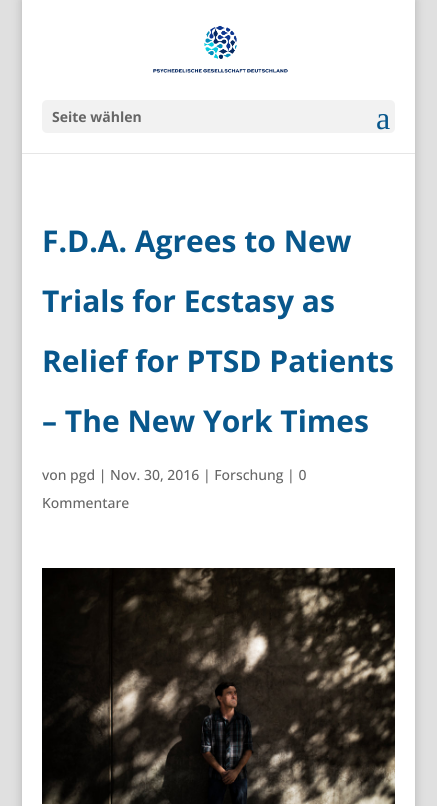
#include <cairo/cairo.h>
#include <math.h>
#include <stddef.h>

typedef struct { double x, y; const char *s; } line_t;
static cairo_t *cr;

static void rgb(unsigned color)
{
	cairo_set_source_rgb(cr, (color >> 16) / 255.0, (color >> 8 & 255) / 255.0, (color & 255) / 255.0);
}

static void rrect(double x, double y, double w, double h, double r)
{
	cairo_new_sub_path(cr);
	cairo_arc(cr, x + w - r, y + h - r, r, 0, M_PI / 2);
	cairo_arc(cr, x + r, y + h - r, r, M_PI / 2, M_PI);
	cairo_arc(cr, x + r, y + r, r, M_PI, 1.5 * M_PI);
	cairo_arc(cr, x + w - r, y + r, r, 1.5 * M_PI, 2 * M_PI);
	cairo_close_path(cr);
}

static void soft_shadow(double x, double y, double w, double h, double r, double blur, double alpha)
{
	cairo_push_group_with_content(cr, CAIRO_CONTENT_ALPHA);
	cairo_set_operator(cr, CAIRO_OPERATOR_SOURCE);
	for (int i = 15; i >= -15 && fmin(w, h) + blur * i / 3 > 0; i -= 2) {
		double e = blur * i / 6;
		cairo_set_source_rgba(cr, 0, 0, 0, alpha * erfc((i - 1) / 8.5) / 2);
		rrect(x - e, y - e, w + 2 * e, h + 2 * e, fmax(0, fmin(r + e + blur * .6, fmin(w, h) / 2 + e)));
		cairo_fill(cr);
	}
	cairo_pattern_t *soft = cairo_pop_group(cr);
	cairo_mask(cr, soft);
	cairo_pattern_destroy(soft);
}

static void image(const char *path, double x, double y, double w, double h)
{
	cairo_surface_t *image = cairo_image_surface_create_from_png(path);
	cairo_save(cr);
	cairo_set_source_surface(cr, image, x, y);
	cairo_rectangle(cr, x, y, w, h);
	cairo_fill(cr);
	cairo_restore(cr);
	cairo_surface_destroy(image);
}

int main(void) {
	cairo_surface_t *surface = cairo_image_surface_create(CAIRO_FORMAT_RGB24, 437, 806);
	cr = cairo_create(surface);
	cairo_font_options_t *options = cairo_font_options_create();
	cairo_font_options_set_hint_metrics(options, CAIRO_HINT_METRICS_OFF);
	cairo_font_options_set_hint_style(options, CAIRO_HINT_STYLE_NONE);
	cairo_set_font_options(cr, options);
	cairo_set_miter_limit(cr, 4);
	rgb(0xe0e0e0);
	cairo_paint(cr);
	rgb(0x000000);
	soft_shadow(22, 0, 393, 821, 0, 5, 0.2);
	rgb(0xe6e6e6);
	cairo_rectangle(cr, 22, 153, 393, 1);
	cairo_fill(cr);
	rgb(0xffffff);
	cairo_rectangle(cr, 22, 0, 393, 153);
	cairo_fill(cr);
	image("img/1.png", 153, 25, 135, 48);
	rgb(0xf2f2f2);
	rrect(42, 100, 353, 33, 5);
	cairo_fill(cr);
	rgb(0xffffff);
	cairo_rectangle(cr, 22, 154, 393, 652);
	cairo_fill(cr);
	image("img/2.png", 42, 568, 353, 236);
	cairo_select_font_face(cr, "Open Sans", CAIRO_FONT_SLANT_NORMAL, CAIRO_FONT_WEIGHT_BOLD);
	cairo_set_font_size(cr, 14);
	rgb(0x666666);
	cairo_move_to(cr, 52, 122);
	cairo_show_text(cr, "Seite wählen");
	cairo_select_font_face(cr, "Liberation Serif", CAIRO_FONT_SLANT_NORMAL, CAIRO_FONT_WEIGHT_NORMAL);
	cairo_set_font_size(cr, 32);
	rgb(0x08578c);
	cairo_move_to(cr, 376, 129);
	cairo_show_text(cr, "a");
	cairo_select_font_face(cr, "Open Sans", CAIRO_FONT_SLANT_NORMAL, CAIRO_FONT_WEIGHT_BOLD);
	cairo_set_font_size(cr, 30);
	{
		static const line_t items[] = {
			{42, 252, "F.D.A. Agrees to New"},
			{42, 312, "Trials for Ecstasy as"},
			{42, 372, "Relief for PTSD Patients"},
			{42, 432, "– The New York Times"},
		};
		for (size_t i = 0; i < sizeof items / sizeof *items; i++) {
			cairo_move_to(cr, items[i].x, items[i].y);
			cairo_show_text(cr, items[i].s);
		}
	}
	cairo_select_font_face(cr, "Open Sans Medium", CAIRO_FONT_SLANT_NORMAL, CAIRO_FONT_WEIGHT_NORMAL);
	cairo_set_font_size(cr, 14);
	rgb(0x666666);
	cairo_move_to(cr, 42, 480);
	cairo_show_text(cr, "von pgd | Nov. 30, 2016 | Forschung | 0");
	cairo_move_to(cr, 42, 508);
	cairo_show_text(cr, "Kommentare");
	cairo_surface_write_to_png(surface, "page.png");
	cairo_font_options_destroy(options);
	cairo_destroy(cr);
	cairo_surface_destroy(surface);
	return 0;
}
